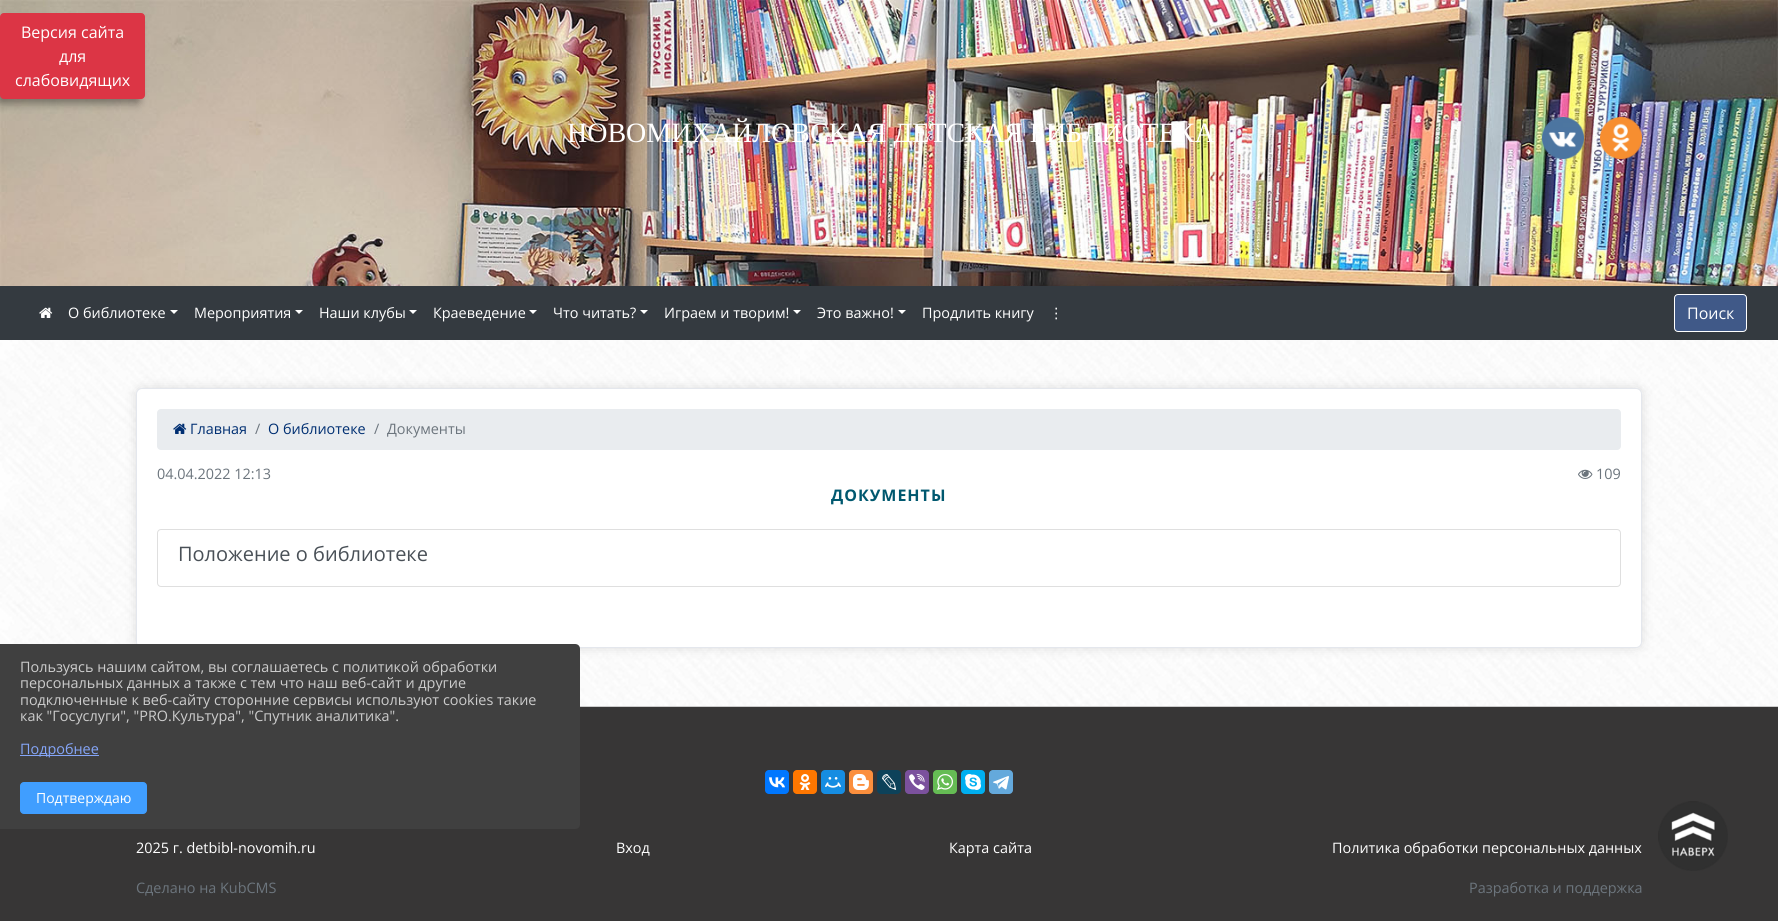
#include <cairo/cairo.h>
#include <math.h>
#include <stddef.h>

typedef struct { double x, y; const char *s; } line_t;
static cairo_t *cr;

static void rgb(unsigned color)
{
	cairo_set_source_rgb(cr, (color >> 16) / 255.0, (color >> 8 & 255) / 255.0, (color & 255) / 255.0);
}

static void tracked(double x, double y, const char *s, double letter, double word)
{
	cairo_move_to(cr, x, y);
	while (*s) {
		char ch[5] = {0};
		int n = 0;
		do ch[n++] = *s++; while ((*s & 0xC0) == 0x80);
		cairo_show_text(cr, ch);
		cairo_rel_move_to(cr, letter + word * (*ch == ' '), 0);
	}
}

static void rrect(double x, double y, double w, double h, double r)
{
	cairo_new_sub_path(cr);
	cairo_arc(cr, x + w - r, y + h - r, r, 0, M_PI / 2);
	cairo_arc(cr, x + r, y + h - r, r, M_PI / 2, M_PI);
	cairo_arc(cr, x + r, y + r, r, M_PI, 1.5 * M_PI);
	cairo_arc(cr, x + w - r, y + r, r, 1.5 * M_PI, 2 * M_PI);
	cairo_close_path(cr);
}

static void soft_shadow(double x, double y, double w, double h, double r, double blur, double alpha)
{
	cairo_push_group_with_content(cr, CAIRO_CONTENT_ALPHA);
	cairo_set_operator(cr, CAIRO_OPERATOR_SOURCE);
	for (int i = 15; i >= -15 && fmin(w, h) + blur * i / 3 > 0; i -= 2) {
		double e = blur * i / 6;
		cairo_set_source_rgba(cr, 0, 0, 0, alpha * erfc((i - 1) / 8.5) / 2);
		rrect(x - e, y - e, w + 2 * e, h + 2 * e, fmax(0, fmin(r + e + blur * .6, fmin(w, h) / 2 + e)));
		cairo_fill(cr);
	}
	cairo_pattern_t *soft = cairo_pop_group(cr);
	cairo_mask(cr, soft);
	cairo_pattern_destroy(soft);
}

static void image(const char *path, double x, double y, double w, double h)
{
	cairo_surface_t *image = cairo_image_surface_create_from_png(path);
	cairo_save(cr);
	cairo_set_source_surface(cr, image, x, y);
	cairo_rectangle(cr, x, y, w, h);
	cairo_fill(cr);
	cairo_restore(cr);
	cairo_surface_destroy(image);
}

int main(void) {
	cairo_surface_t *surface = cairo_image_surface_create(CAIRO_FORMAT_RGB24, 1778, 921);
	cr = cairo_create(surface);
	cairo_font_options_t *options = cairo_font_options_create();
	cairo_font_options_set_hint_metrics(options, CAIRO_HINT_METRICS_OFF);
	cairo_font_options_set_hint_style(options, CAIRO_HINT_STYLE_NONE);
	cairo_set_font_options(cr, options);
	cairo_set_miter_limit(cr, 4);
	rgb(0xffffff);
	cairo_paint(cr);
	image("img/1.png", 0, 340, 1778, 366);
	image("img/2.png", 0, 0, 1778, 286);
	rgb(0x000000);
	soft_shadow(-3, 20, 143, 84, 3, 4, 0.35);
	rgb(0xdc3545);
	rrect(0.5, 13.5, 144, 85, 3.5);
	cairo_fill_preserve(cr);
	cairo_set_line_width(cr, 1);
	cairo_stroke(cr);
	image("img/3.png", 1542, 117, 42, 42);
	image("img/4.png", 1600, 117, 42, 42);
	rgb(0x343a40);
	cairo_rectangle(cr, 0, 286, 1778, 54);
	cairo_fill(cr);
	image("img/5.png", 39, 307, 14, 11);
	rgb(0xffffff);
	cairo_new_path(cr);
	cairo_move_to(cr, 170, 310);
	cairo_line_to(cr, 178, 310);
	cairo_line_to(cr, 174, 314);
	cairo_close_path(cr);
	cairo_fill(cr);
	cairo_new_path(cr);
	cairo_move_to(cr, 295, 310);
	cairo_line_to(cr, 303, 310);
	cairo_line_to(cr, 299, 314);
	cairo_close_path(cr);
	cairo_fill(cr);
	cairo_new_path(cr);
	cairo_move_to(cr, 409, 310);
	cairo_line_to(cr, 417, 310);
	cairo_line_to(cr, 413, 314);
	cairo_close_path(cr);
	cairo_fill(cr);
	cairo_new_path(cr);
	cairo_move_to(cr, 529, 310);
	cairo_line_to(cr, 537, 310);
	cairo_line_to(cr, 533, 314);
	cairo_close_path(cr);
	cairo_fill(cr);
	cairo_new_path(cr);
	cairo_move_to(cr, 640, 310);
	cairo_line_to(cr, 648, 310);
	cairo_line_to(cr, 644, 314);
	cairo_close_path(cr);
	cairo_fill(cr);
	cairo_new_path(cr);
	cairo_move_to(cr, 793, 310);
	cairo_line_to(cr, 801, 310);
	cairo_line_to(cr, 797, 314);
	cairo_close_path(cr);
	cairo_fill(cr);
	cairo_new_path(cr);
	cairo_move_to(cr, 898, 310);
	cairo_line_to(cr, 906, 310);
	cairo_line_to(cr, 902, 314);
	cairo_close_path(cr);
	cairo_fill(cr);
	rgb(0x405988);
	rrect(1674.5, 294.5, 72, 37, 3.5);
	cairo_fill_preserve(cr);
	rgb(0xffffff);
	cairo_stroke(cr);
	rgb(0x000000);
	soft_shadow(136, 388, 1506, 260, 6, 6, 0.12);
	rgb(0xffffff);
	rrect(136.5, 388.5, 1505, 259, 5.5);
	cairo_fill_preserve(cr);
	rgb(0xe4e7ed);
	cairo_stroke(cr);
	rgb(0xe9ecef);
	rrect(157, 409, 1464, 41, 4);
	cairo_fill(cr);
	image("img/6.png", 173, 423, 14, 11);
	image("img/7.png", 1578, 469, 15, 10);
	rrect(157.5, 529.5, 1463, 57, 3.5);
	rgb(0xdfdfdf);
	cairo_stroke(cr);
	rgb(0x373636);
	cairo_rectangle(cr, 0, 707, 1778, 214);
	cairo_fill(cr);
	rgb(0xcccccc);
	cairo_rectangle(cr, 580, 706, 1198, 1);
	cairo_fill(cr);
	rgb(0x0077ff);
	rrect(765, 770, 24, 24, 4);
	cairo_fill(cr);
	image("img/8.png", 769, 777, 16, 11);
	rgb(0xff7700);
	rrect(793, 770, 24, 24, 4);
	cairo_fill(cr);
	image("img/9.png", 799, 774, 12, 16);
	rgb(0x168de2);
	rrect(821, 770, 24, 24, 4);
	cairo_fill(cr);
	image("img/10.png", 825, 777, 16, 11);
	rgb(0xfb8f3d);
	rrect(849, 770, 24, 24, 4);
	cairo_fill(cr);
	image("img/11.png", 853, 774, 16, 16);
	rgb(0x0d425a);
	rrect(877, 770, 24, 24, 4);
	cairo_fill(cr);
	image("img/12.png", 882, 774, 15, 16);
	rgb(0x7b519d);
	rrect(905, 770, 24, 24, 4);
	cairo_fill(cr);
	image("img/13.png", 909, 774, 16, 16);
	rgb(0x65bc54);
	rrect(933, 770, 24, 24, 4);
	cairo_fill(cr);
	image("img/14.png", 937, 774, 16, 16);
	rgb(0x00aff0);
	rrect(961, 770, 24, 24, 4);
	cairo_fill(cr);
	image("img/15.png", 965, 774, 16, 16);
	rgb(0x64a9dc);
	rrect(989, 770, 24, 24, 4);
	cairo_fill(cr);
	image("img/16.png", 993, 776, 16, 14);
	image("img/17.png", 1658, 801, 70, 70);
	rgb(0x404040);
	cairo_new_path(cr);
	cairo_move_to(cr, 0, 644);
	cairo_line_to(cr, 575, 644);
	cairo_curve_to(cr, 578, 644, 580, 646, 580, 649);
	cairo_line_to(cr, 580, 824);
	cairo_curve_to(cr, 580, 827, 578, 829, 575, 829);
	cairo_line_to(cr, 0, 829);
	cairo_close_path(cr);
	cairo_fill(cr);
	rgb(0x85a6f9);
	cairo_rectangle(cr, 20, 755, 79, 1);
	cairo_fill(cr);
	rgb(0x409eff);
	rrect(20.5, 782.5, 126, 31, 3.5);
	cairo_fill_preserve(cr);
	cairo_stroke(cr);
	cairo_select_font_face(cr, "Open Sans", CAIRO_FONT_SLANT_NORMAL, CAIRO_FONT_WEIGHT_NORMAL);
	cairo_set_font_size(cr, 16);
	rgb(0xffffff);
	{
		static const line_t items[] = {
			{21, 38, "Версия сайта"},
			{59, 62, "для"},
			{15, 86, "слабовидящих"},
		};
		for (size_t i = 0; i < sizeof items / sizeof *items; i++) {
			cairo_move_to(cr, items[i].x, items[i].y);
			cairo_show_text(cr, items[i].s);
		}
	}
	cairo_select_font_face(cr, "Liberation Serif", CAIRO_FONT_SLANT_NORMAL, CAIRO_FONT_WEIGHT_NORMAL);
	cairo_set_font_size(cr, 28);
	cairo_move_to(cr, 567, 142);
	cairo_show_text(cr, "НОВОМИХАЙЛОВСКАЯ ДЕТСКАЯ БИБЛИОТЕКА");
	cairo_select_font_face(cr, "Open Sans", CAIRO_FONT_SLANT_NORMAL, CAIRO_FONT_WEIGHT_NORMAL);
	cairo_set_font_size(cr, 14.4);
	{
		static const line_t items[] = {
			{68, 318, "О библиотеке"},
			{194, 318, "Мероприятия"},
			{319, 318, "Наши клубы"},
			{433, 318, "Краеведение"},
			{553, 318, "Что читать?"},
			{664, 318, "Играем и творим!"},
			{817, 318, "Это важно!"},
			{922, 318, "Продлить книгу"},
		};
		for (size_t i = 0; i < sizeof items / sizeof *items; i++) {
			cairo_move_to(cr, items[i].x, items[i].y);
			cairo_show_text(cr, items[i].s);
		}
	}
	cairo_select_font_face(cr, "DejaVu Sans", CAIRO_FONT_SLANT_NORMAL, CAIRO_FONT_WEIGHT_NORMAL);
	cairo_move_to(cr, 1049, 318);
	cairo_show_text(cr, "⋮");
	cairo_select_font_face(cr, "Open Sans", CAIRO_FONT_SLANT_NORMAL, CAIRO_FONT_WEIGHT_NORMAL);
	cairo_set_font_size(cr, 16);
	cairo_move_to(cr, 1687, 319);
	cairo_show_text(cr, "Поиск");
	cairo_set_font_size(cr, 14.4);
	rgb(0x002f72);
	cairo_move_to(cr, 190, 434);
	cairo_show_text(cr, "Главная");
	rgb(0x6c757d);
	cairo_move_to(cr, 255, 434);
	cairo_show_text(cr, "/");
	rgb(0x002f72);
	cairo_move_to(cr, 268, 434);
	cairo_show_text(cr, "О библиотеке");
	rgb(0x6c757d);
	{
		static const line_t items[] = {
			{374, 434, "/"},
			{387, 434, "Документы"},
			{157, 479, "04.04.2022 12:13"},
			{1596, 479, "109"},
		};
		for (size_t i = 0; i < sizeof items / sizeof *items; i++) {
			cairo_move_to(cr, items[i].x, items[i].y);
			cairo_show_text(cr, items[i].s);
		}
	}
	cairo_select_font_face(cr, "Open Sans", CAIRO_FONT_SLANT_NORMAL, CAIRO_FONT_WEIGHT_BOLD);
	cairo_set_font_size(cr, 16);
	rgb(0x00586f);
	tracked(831, 501, "ДОКУМЕНТЫ", 1, 0);
	cairo_select_font_face(cr, "Open Sans", CAIRO_FONT_SLANT_NORMAL, CAIRO_FONT_WEIGHT_NORMAL);
	cairo_set_font_size(cr, 20);
	rgb(0x495057);
	cairo_move_to(cr, 178, 561);
	cairo_show_text(cr, "Положение о библиотеке");
	cairo_set_font_size(cr, 14.4);
	rgb(0xffffff);
	{
		static const line_t items[] = {
			{136, 853, "2025 г. detbibl-novomih.ru"},
			{616, 853, "Вход"},
			{949, 853, "Карта сайта"},
			{1332, 853, "Политика обработки персональных данных"},
		};
		for (size_t i = 0; i < sizeof items / sizeof *items; i++) {
			cairo_move_to(cr, items[i].x, items[i].y);
			cairo_show_text(cr, items[i].s);
		}
	}
	rgb(0x6c757d);
	cairo_move_to(cr, 136, 893);
	cairo_show_text(cr, "Сделано на KubCMS");
	cairo_move_to(cr, 1469, 893);
	cairo_show_text(cr, "Разработка и поддержка");
	rgb(0xcccccc);
	{
		static const line_t items[] = {
			{20, 672, "Пользуясь нашим сайтом, вы соглашаетесь с политикой обработки"},
			{20, 688, "персональных данных а также с тем что наш веб-сайт и другие"},
			{20, 705, "подключенные к веб-сайту сторонние сервисы используют cookies такие"},
			{20, 721, "как \"Госуслуги\", \"PRO.Культура\", \"Спутник аналитика\"."},
		};
		for (size_t i = 0; i < sizeof items / sizeof *items; i++) {
			cairo_move_to(cr, items[i].x, items[i].y);
			cairo_show_text(cr, items[i].s);
		}
	}
	rgb(0x85a6f9);
	cairo_move_to(cr, 20, 754);
	cairo_show_text(cr, "Подробнее");
	cairo_set_font_size(cr, 14);
	rgb(0xffffff);
	cairo_move_to(cr, 36, 803);
	cairo_show_text(cr, "Подтверждаю");
	cairo_surface_write_to_png(surface, "page.png");
	cairo_font_options_destroy(options);
	cairo_destroy(cr);
	cairo_surface_destroy(surface);
	return 0;
}
